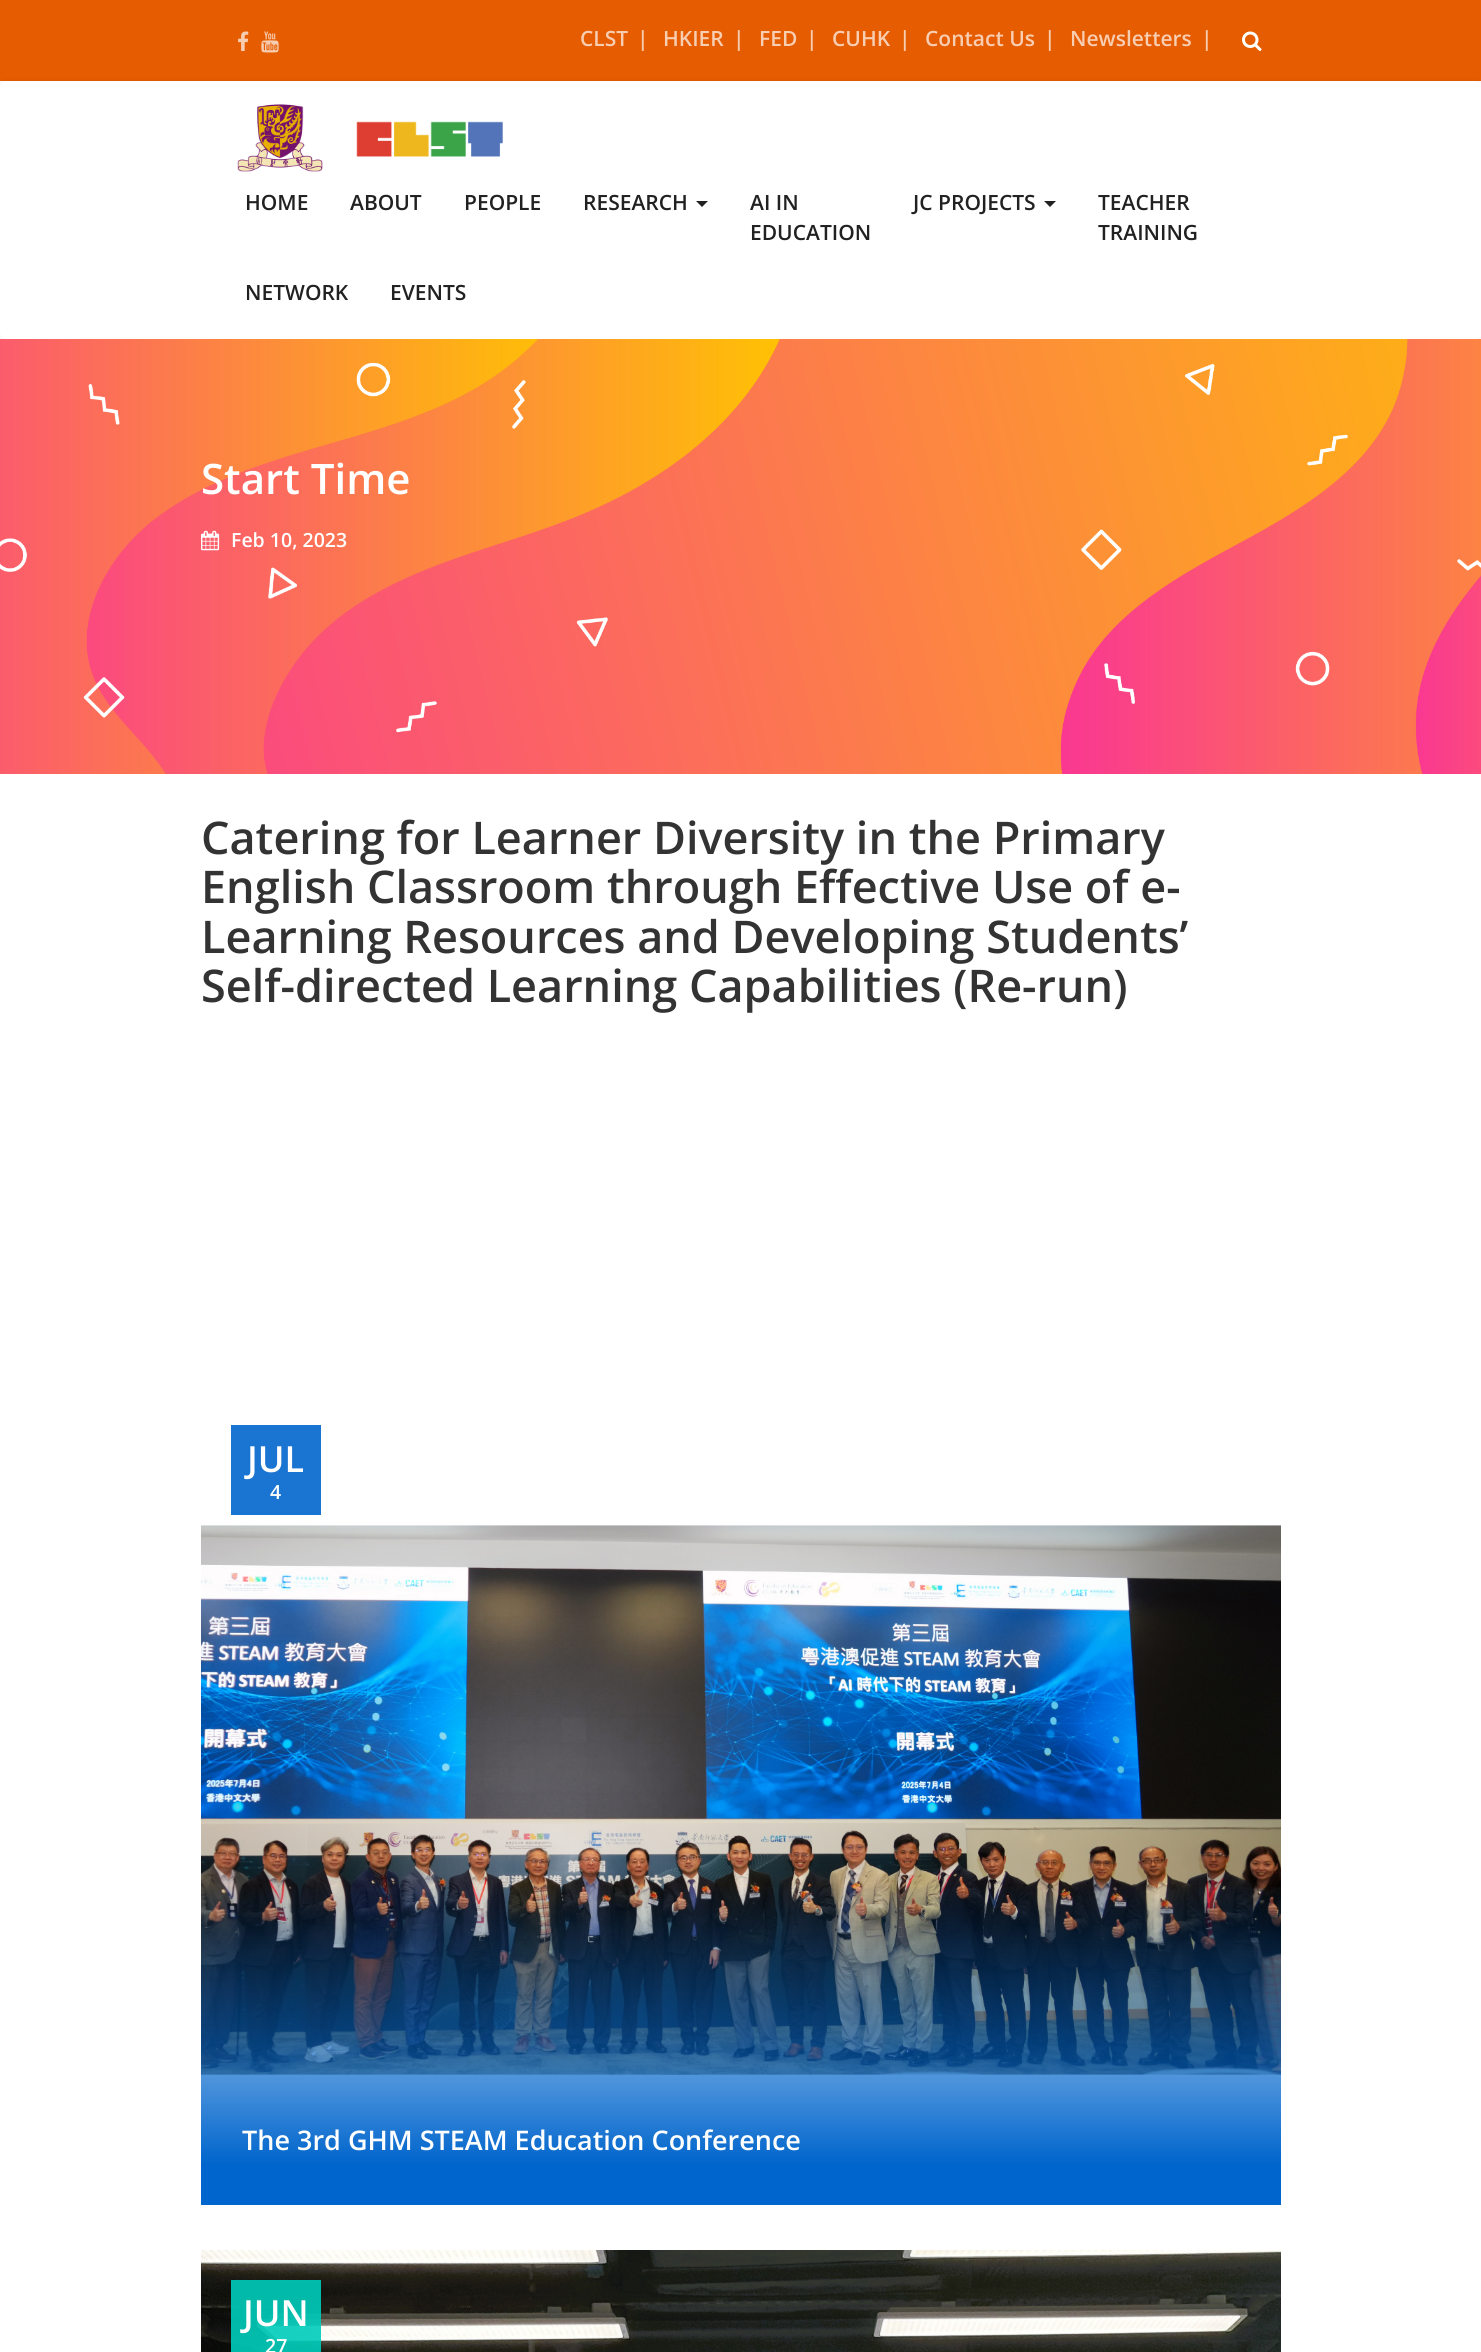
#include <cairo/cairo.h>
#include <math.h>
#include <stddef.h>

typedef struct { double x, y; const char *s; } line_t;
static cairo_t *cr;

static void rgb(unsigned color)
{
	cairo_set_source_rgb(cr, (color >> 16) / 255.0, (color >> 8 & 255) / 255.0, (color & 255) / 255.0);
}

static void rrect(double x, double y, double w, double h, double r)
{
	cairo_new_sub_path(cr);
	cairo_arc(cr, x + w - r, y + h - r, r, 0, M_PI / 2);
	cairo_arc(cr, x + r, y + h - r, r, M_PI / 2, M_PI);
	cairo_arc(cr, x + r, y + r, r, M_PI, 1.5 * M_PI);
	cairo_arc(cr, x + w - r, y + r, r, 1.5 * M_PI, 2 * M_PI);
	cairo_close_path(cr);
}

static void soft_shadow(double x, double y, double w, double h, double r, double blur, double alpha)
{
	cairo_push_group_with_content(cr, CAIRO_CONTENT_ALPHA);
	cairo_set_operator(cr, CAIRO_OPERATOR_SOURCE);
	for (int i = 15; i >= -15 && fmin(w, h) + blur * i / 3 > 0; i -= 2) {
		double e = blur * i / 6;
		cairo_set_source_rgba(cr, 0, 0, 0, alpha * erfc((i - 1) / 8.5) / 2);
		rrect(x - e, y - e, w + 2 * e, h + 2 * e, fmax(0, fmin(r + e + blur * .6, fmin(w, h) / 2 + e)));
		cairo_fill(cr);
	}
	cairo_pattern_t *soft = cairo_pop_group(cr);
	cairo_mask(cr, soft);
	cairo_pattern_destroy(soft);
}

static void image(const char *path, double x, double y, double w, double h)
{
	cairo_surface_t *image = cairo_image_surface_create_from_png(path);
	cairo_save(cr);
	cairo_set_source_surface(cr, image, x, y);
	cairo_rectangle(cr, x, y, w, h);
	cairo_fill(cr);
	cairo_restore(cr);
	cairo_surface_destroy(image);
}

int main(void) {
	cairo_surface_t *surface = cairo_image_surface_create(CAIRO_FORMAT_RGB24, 1481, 2352);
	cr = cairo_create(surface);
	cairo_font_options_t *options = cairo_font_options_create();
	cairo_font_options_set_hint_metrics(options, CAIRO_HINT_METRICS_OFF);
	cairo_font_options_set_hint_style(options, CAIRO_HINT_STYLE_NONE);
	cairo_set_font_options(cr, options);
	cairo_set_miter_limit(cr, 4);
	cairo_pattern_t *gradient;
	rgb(0xffffff);
	cairo_paint(cr);
	rgb(0xe65c00);
	cairo_rectangle(cr, 0, 0, 1481, 81);
	cairo_fill(cr);
	image("img/1.png", 238, 31, 11, 20);
	image("img/2.png", 261, 31, 18, 22);
	image("img/3.png", 1242, 31, 20, 20);
	rgb(0x000000);
	soft_shadow(0, 81, 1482, 258, 6, 2, 0.1);
	rgb(0xffffff);
	rrect(0, 81, 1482, 258, 6);
	cairo_fill(cr);
	image("img/4.png", 237, 104, 266, 68);
	rgb(0x212121);
	cairo_new_path(cr);
	cairo_move_to(cr, 696, 201);
	cairo_line_to(cr, 708, 201);
	cairo_line_to(cr, 702, 207);
	cairo_close_path(cr);
	cairo_fill(cr);
	cairo_new_path(cr);
	cairo_move_to(cr, 1044, 201);
	cairo_line_to(cr, 1056, 201);
	cairo_line_to(cr, 1050, 207);
	cairo_close_path(cr);
	cairo_fill(cr);
	image("img/5.png", 0, 339, 1481, 435);
	image("img/6.png", 201, 530, 19, 21);
	rgb(0x1a74d1);
	cairo_rectangle(cr, 231, 1425, 90, 90);
	cairo_fill(cr);
	image("img/7.png", 201, 1525, 1080, 550);
	gradient = cairo_pattern_create_linear(741, 1395, 741, 2205);
	cairo_pattern_add_color_stop_rgba(gradient, 0.6, 0, 0.396, 0.8, 0);
	cairo_pattern_add_color_stop_rgba(gradient, 0.95, 0, 0.396, 0.8, 1);
	cairo_set_source(cr, gradient);
	cairo_pattern_destroy(gradient);
	cairo_rectangle(cr, 201, 1887, 1080, 318);
	cairo_fill(cr);
	image("img/8.png", 201, 2250, 1080, 102);
	cairo_set_source_rgba(cr, 0, 0.8, 0.733, 0.9);
	cairo_rectangle(cr, 231, 2280, 90, 72);
	cairo_fill(cr);
	cairo_select_font_face(cr, "Open Sans SemiBold", CAIRO_FONT_SLANT_NORMAL, CAIRO_FONT_WEIGHT_NORMAL);
	cairo_set_font_size(cr, 21);
	rgb(0xf8ceb3);
	{
		static const line_t items[] = {
			{580, 46, "CLST"},
			{637, 46, "|"},
			{663, 46, "HKIER"},
			{733, 46, "|"},
			{759, 46, "FED"},
			{806, 46, "|"},
			{832, 46, "CUHK"},
			{899, 46, "|"},
			{925, 46, "Contact Us"},
			{1044, 46, "|"},
			{1070, 46, "Newsletters"},
			{1201, 46, "|"},
		};
		for (size_t i = 0; i < sizeof items / sizeof *items; i++) {
			cairo_move_to(cr, items[i].x, items[i].y);
			cairo_show_text(cr, items[i].s);
		}
	}
	rgb(0x212121);
	{
		static const line_t items[] = {
			{245, 210, "HOME"},
			{350, 210, "ABOUT"},
			{464, 210, "PEOPLE"},
			{583, 210, "RESEARCH"},
			{750, 210, "AI IN"},
			{750, 240, "EDUCATION"},
			{913, 210, "JC PROJECTS"},
			{1098, 210, "TEACHER"},
			{1098, 240, "TRAINING"},
			{245, 300, "NETWORK"},
			{390, 300, "EVENTS"},
		};
		for (size_t i = 0; i < sizeof items / sizeof *items; i++) {
			cairo_move_to(cr, items[i].x, items[i].y);
			cairo_show_text(cr, items[i].s);
		}
	}
	cairo_set_font_size(cr, 42);
	rgb(0xffffff);
	cairo_move_to(cr, 201, 494);
	cairo_show_text(cr, "Start Time");
	cairo_set_font_size(cr, 19.5);
	cairo_move_to(cr, 231, 547);
	cairo_show_text(cr, "Feb 10, 2023");
	cairo_set_font_size(cr, 45);
	rgb(0x333333);
	{
		static const line_t items[] = {
			{201, 854, "Catering for Learner Diversity in the Primary"},
			{201, 903, "English Classroom through Effective Use of e-"},
			{201, 953, "Learning Resources and Developing Students’"},
			{201, 1002, "Self-directed Learning Capabilities (Re-run)"},
		};
		for (size_t i = 0; i < sizeof items / sizeof *items; i++) {
			cairo_move_to(cr, items[i].x, items[i].y);
			cairo_show_text(cr, items[i].s);
		}
	}
	cairo_set_font_size(cr, 36);
	rgb(0xffffff);
	cairo_move_to(cr, 247, 1472);
	cairo_show_text(cr, "JUL");
	cairo_set_font_size(cr, 19.5);
	cairo_move_to(cr, 270, 1499);
	cairo_show_text(cr, "4");
	cairo_set_font_size(cr, 27);
	cairo_move_to(cr, 242, 2150);
	cairo_show_text(cr, "The 3rd GHM STEAM Education Conference");
	cairo_set_font_size(cr, 36);
	cairo_move_to(cr, 243, 2326);
	cairo_show_text(cr, "JUN");
	cairo_set_font_size(cr, 19.5);
	cairo_move_to(cr, 265, 2353);
	cairo_show_text(cr, "27");
	cairo_surface_write_to_png(surface, "page.png");
	cairo_font_options_destroy(options);
	cairo_destroy(cr);
	cairo_surface_destroy(surface);
	return 0;
}
